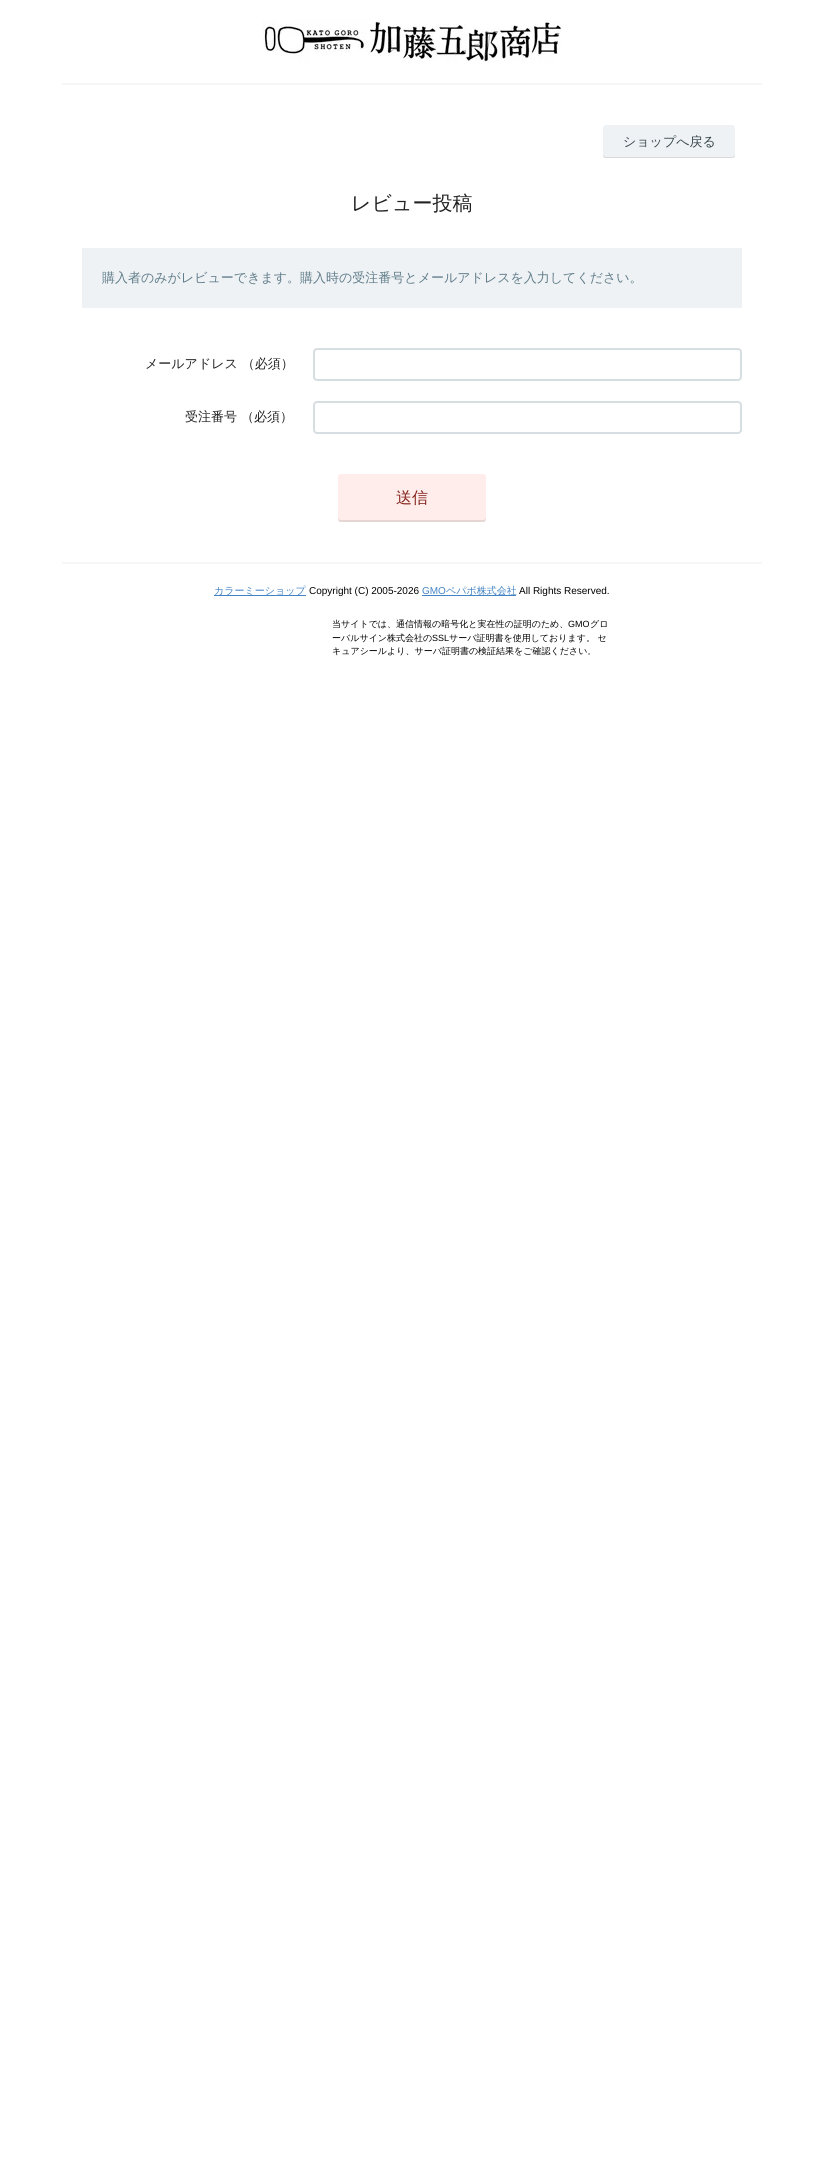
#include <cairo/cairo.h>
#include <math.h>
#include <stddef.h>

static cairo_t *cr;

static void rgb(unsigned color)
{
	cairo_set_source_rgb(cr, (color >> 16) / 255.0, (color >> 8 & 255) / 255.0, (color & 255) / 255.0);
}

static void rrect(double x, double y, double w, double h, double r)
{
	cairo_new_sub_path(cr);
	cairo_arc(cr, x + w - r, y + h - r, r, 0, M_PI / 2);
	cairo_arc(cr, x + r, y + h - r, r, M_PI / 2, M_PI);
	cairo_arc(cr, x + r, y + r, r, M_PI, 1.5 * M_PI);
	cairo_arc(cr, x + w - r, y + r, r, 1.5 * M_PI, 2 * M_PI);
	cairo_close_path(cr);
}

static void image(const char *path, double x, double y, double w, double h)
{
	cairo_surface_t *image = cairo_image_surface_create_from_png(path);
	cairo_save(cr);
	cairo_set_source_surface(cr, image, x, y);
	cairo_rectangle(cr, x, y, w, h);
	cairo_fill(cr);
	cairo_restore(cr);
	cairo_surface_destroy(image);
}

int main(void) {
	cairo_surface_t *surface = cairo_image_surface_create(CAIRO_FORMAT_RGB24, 824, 2180);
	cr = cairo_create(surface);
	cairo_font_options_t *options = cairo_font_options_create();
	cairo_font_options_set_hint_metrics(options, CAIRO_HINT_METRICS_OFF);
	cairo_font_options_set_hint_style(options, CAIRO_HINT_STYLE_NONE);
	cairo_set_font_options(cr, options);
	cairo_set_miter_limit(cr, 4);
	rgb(0xffffff);
	cairo_paint(cr);
	image("img/1.png", 262, 20, 300, 43);
	rgb(0xf6f6f6);
	cairo_rectangle(cr, 62, 83, 700, 2);
	cairo_fill(cr);
	cairo_rectangle(cr, 62, 562, 700, 2);
	cairo_fill(cr);
	rgb(0xeff2f4);
	rrect(603, 125, 132, 33, 3);
	cairo_fill(cr);
	cairo_set_source_rgba(cr, 0, 0, 0, 0.1);
	cairo_new_path(cr);
	cairo_move_to(cr, 603, 154);
	cairo_curve_to(cr, 603, 156, 603, 158, 605, 158);
	cairo_line_to(cr, 733, 158);
	cairo_curve_to(cr, 735, 158, 735, 156, 735, 154);
	cairo_curve_to(cr, 735, 155, 734, 157, 732, 157);
	cairo_line_to(cr, 606, 157);
	cairo_curve_to(cr, 604, 157, 603, 155, 603, 154);
	cairo_close_path(cr);
	cairo_fill(cr);
	rgb(0xeff2f4);
	cairo_rectangle(cr, 82, 248, 660, 60);
	cairo_fill(cr);
	rrect(314, 349, 427, 31, 3);
	rgb(0xd7dee2);
	cairo_stroke(cr);
	rrect(314, 402, 427, 31, 3);
	cairo_stroke(cr);
	rgb(0xfeedeb);
	rrect(338, 474, 148, 48, 3);
	cairo_fill(cr);
	cairo_set_source_rgba(cr, 0, 0, 0, 0.1);
	cairo_new_path(cr);
	cairo_move_to(cr, 338, 517);
	cairo_line_to(cr, 338, 519);
	cairo_curve_to(cr, 338, 521, 339, 522, 341, 522);
	cairo_line_to(cr, 483, 522);
	cairo_curve_to(cr, 485, 522, 486, 521, 486, 519);
	cairo_line_to(cr, 486, 517);
	cairo_curve_to(cr, 486, 519, 485, 520, 483, 520);
	cairo_line_to(cr, 341, 520);
	cairo_curve_to(cr, 339, 520, 338, 519, 338, 517);
	cairo_close_path(cr);
	cairo_fill(cr);
	rgb(0x4183c4);
	cairo_rectangle(cr, 214, 595, 92, 1);
	cairo_fill(cr);
	cairo_rectangle(cr, 422, 595, 94, 1);
	cairo_fill(cr);
	cairo_select_font_face(cr, "WenQuanYi Zen Hei Medium", CAIRO_FONT_SLANT_NORMAL, CAIRO_FONT_WEIGHT_NORMAL);
	cairo_set_font_size(cr, 13);
	rgb(0x35454c);
	cairo_move_to(cr, 623, 146);
	cairo_show_text(cr, "ショップへ戻る");
	cairo_set_font_size(cr, 20);
	rgb(0x222222);
	cairo_move_to(cr, 351, 210);
	cairo_show_text(cr, "レビュー投稿");
	cairo_set_font_size(cr, 13);
	rgb(0x607d8b);
	cairo_move_to(cr, 102, 282);
	cairo_show_text(cr, "購入者のみがレビューできます。購入時の受注番号とメールアドレスを入力してください。");
	rgb(0x222222);
	cairo_move_to(cr, 145, 368);
	cairo_show_text(cr, "メールアドレス （必須）");
	cairo_move_to(cr, 185, 421);
	cairo_show_text(cr, "受注番号 （必須）");
	cairo_set_font_size(cr, 16);
	rgb(0x86251e);
	cairo_move_to(cr, 396, 503);
	cairo_show_text(cr, "送信");
	cairo_set_font_size(cr, 10);
	rgb(0x4183c4);
	cairo_move_to(cr, 214, 594);
	cairo_show_text(cr, "カラーミーショップ");
	cairo_select_font_face(cr, "Liberation Sans", CAIRO_FONT_SLANT_NORMAL, CAIRO_FONT_WEIGHT_NORMAL);
	rgb(0x000000);
	cairo_move_to(cr, 309, 594);
	cairo_show_text(cr, "Copyright (C) 2005-2026");
	rgb(0x4183c4);
	cairo_move_to(cr, 422, 594);
	cairo_show_text(cr, "GMO");
	cairo_select_font_face(cr, "WenQuanYi Zen Hei Medium", CAIRO_FONT_SLANT_NORMAL, CAIRO_FONT_WEIGHT_NORMAL);
	cairo_move_to(cr, 446, 594);
	cairo_show_text(cr, "ペパボ株式会社");
	cairo_select_font_face(cr, "Liberation Sans", CAIRO_FONT_SLANT_NORMAL, CAIRO_FONT_WEIGHT_NORMAL);
	rgb(0x000000);
	cairo_move_to(cr, 519, 594);
	cairo_show_text(cr, "All Rights Reserved.");
	cairo_select_font_face(cr, "WenQuanYi Zen Hei Medium", CAIRO_FONT_SLANT_NORMAL, CAIRO_FONT_WEIGHT_NORMAL);
	cairo_set_font_size(cr, 9);
	cairo_move_to(cr, 332, 627);
	cairo_show_text(cr, "当サイトでは、通信情報の暗号化と実在性の証明のため、");
	cairo_select_font_face(cr, "Liberation Sans", CAIRO_FONT_SLANT_NORMAL, CAIRO_FONT_WEIGHT_NORMAL);
	cairo_move_to(cr, 568, 627);
	cairo_show_text(cr, "GMO");
	cairo_select_font_face(cr, "WenQuanYi Zen Hei Medium", CAIRO_FONT_SLANT_NORMAL, CAIRO_FONT_WEIGHT_NORMAL);
	cairo_move_to(cr, 590, 627);
	cairo_show_text(cr, "グロ");
	cairo_move_to(cr, 332, 641);
	cairo_show_text(cr, "ーバルサイン株式会社の");
	cairo_select_font_face(cr, "Liberation Sans", CAIRO_FONT_SLANT_NORMAL, CAIRO_FONT_WEIGHT_NORMAL);
	cairo_move_to(cr, 432, 641);
	cairo_show_text(cr, "SSL");
	cairo_select_font_face(cr, "WenQuanYi Zen Hei Medium", CAIRO_FONT_SLANT_NORMAL, CAIRO_FONT_WEIGHT_NORMAL);
	cairo_move_to(cr, 449, 641);
	cairo_show_text(cr, "サーバ証明書を使用しております。 セ");
	cairo_move_to(cr, 332, 654);
	cairo_show_text(cr, "キュアシールより、サーバ証明書の検証結果をご確認ください。");
	cairo_surface_write_to_png(surface, "page.png");
	cairo_font_options_destroy(options);
	cairo_destroy(cr);
	cairo_surface_destroy(surface);
	return 0;
}
